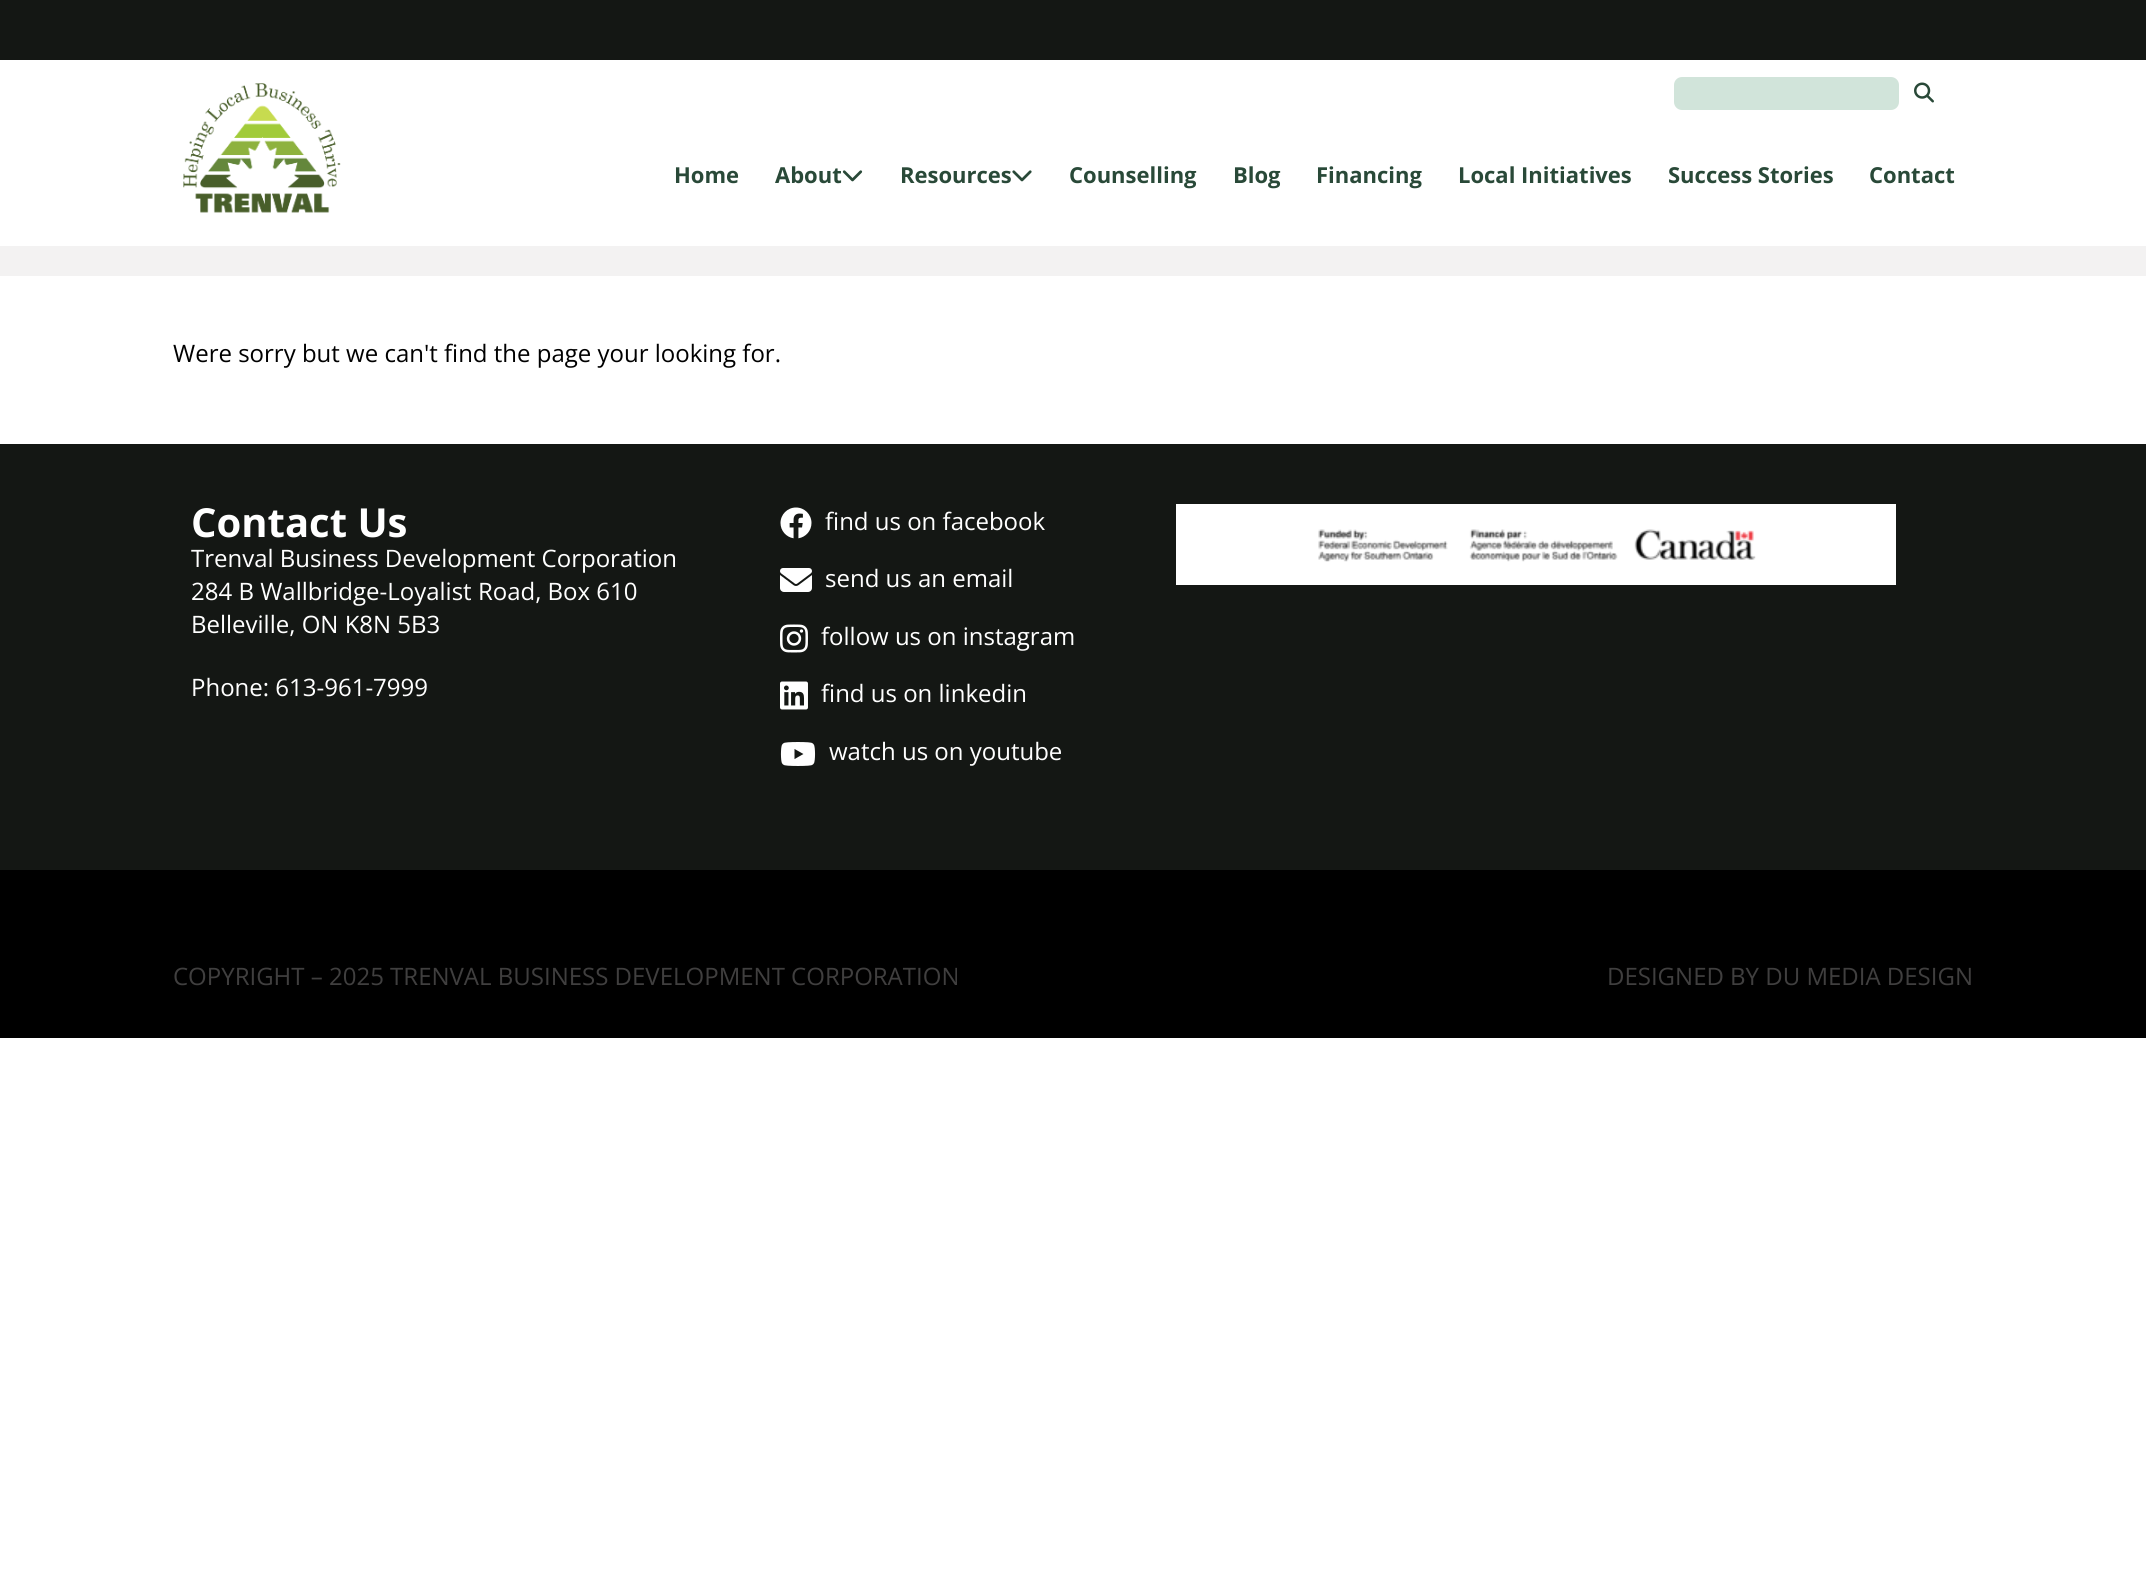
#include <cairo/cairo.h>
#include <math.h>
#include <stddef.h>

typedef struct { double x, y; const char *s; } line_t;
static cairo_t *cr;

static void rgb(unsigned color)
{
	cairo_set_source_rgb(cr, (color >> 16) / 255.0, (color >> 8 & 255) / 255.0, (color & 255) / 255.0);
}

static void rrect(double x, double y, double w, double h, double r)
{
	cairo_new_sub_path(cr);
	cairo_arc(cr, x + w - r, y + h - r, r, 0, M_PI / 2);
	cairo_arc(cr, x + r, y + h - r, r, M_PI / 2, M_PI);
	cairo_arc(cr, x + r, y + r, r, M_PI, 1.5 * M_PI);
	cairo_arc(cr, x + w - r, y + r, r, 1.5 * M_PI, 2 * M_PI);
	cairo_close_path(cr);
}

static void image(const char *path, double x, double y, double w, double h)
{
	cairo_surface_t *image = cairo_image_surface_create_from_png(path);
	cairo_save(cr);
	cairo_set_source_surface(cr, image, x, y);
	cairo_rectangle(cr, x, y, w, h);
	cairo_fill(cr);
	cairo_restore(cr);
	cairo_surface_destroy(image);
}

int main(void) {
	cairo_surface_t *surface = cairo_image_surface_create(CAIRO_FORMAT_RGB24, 2146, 1579);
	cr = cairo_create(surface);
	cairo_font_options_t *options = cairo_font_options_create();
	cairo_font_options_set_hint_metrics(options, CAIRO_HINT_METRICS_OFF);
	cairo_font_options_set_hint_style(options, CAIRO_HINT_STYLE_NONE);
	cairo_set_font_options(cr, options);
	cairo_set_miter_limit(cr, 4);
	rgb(0xffffff);
	cairo_paint(cr);
	rgb(0x141714);
	cairo_rectangle(cr, 0, 0, 2146, 60);
	cairo_fill(cr);
	image("img/1.png", 183, 83, 158, 130);
	rgb(0xd1e4da);
	rrect(1674, 77, 225, 33, 8);
	cairo_fill(cr);
	image("img/2.png", 1914, 82, 20, 21);
	image("img/3.png", 842, 170, 21, 12);
	image("img/4.png", 1012, 170, 20, 12);
	rgb(0xf3f2f2);
	cairo_rectangle(cr, 0, 246, 2146, 30);
	cairo_fill(cr);
	rgb(0x141714);
	cairo_rectangle(cr, 0, 444, 2146, 426);
	cairo_fill(cr);
	image("img/5.png", 780, 507, 32, 32);
	image("img/6.png", 780, 568, 32, 24);
	image("img/7.png", 780, 624, 28, 29);
	image("img/8.png", 780, 681, 28, 29);
	image("img/9.png", 780, 742, 36, 24);
	rgb(0xffffff);
	cairo_rectangle(cr, 1176, 504, 720, 81);
	cairo_fill(cr);
	image("img/10.png", 1318, 529, 438, 33);
	rgb(0x000000);
	cairo_rectangle(cr, 0, 870, 2146, 168);
	cairo_fill(cr);
	cairo_select_font_face(cr, "Open Sans", CAIRO_FONT_SLANT_NORMAL, CAIRO_FONT_WEIGHT_BOLD);
	cairo_set_font_size(cr, 22);
	rgb(0x294938);
	{
		static const line_t items[] = {
			{674, 183, "Home"},
			{775, 183, "About"},
			{900, 183, "Resources"},
			{1069, 183, "Counselling"},
			{1233, 183, "Blog"},
			{1316, 183, "Financing"},
			{1458, 183, "Local Initiatives"},
			{1668, 183, "Success Stories"},
			{1869, 183, "Contact"},
		};
		for (size_t i = 0; i < sizeof items / sizeof *items; i++) {
			cairo_move_to(cr, items[i].x, items[i].y);
			cairo_show_text(cr, items[i].s);
		}
	}
	cairo_select_font_face(cr, "Open Sans", CAIRO_FONT_SLANT_NORMAL, CAIRO_FONT_WEIGHT_NORMAL);
	cairo_set_font_size(cr, 24);
	rgb(0x000000);
	cairo_move_to(cr, 173, 362);
	cairo_show_text(cr, "Were sorry but we can't find the page your looking for.");
	cairo_select_font_face(cr, "Open Sans", CAIRO_FONT_SLANT_NORMAL, CAIRO_FONT_WEIGHT_BOLD);
	cairo_set_font_size(cr, 40);
	rgb(0xffffff);
	cairo_move_to(cr, 191, 537);
	cairo_show_text(cr, "Contact Us");
	cairo_select_font_face(cr, "Open Sans", CAIRO_FONT_SLANT_NORMAL, CAIRO_FONT_WEIGHT_NORMAL);
	cairo_set_font_size(cr, 24);
	{
		static const line_t items[] = {
			{191, 567, "Trenval Business Development Corporation"},
			{191, 600, "284 B Wallbridge-Loyalist Road, Box 610"},
			{191, 633, "Belleville, ON K8N 5B3"},
			{191, 696, "Phone: 613-961-7999"},
			{825, 530, "find us on facebook"},
			{825, 587, "send us an email"},
			{821, 645, "follow us on instagram"},
			{821, 702, "find us on linkedin"},
			{829, 760, "watch us on youtube"},
		};
		for (size_t i = 0; i < sizeof items / sizeof *items; i++) {
			cairo_move_to(cr, items[i].x, items[i].y);
			cairo_show_text(cr, items[i].s);
		}
	}
	rgb(0x403f3f);
	cairo_move_to(cr, 173, 985);
	cairo_show_text(cr, "COPYRIGHT – 2025 TRENVAL BUSINESS DEVELOPMENT CORPORATION");
	cairo_move_to(cr, 1607, 985);
	cairo_show_text(cr, "DESIGNED BY DU MEDIA DESIGN");
	cairo_surface_write_to_png(surface, "page.png");
	cairo_font_options_destroy(options);
	cairo_destroy(cr);
	cairo_surface_destroy(surface);
	return 0;
}
